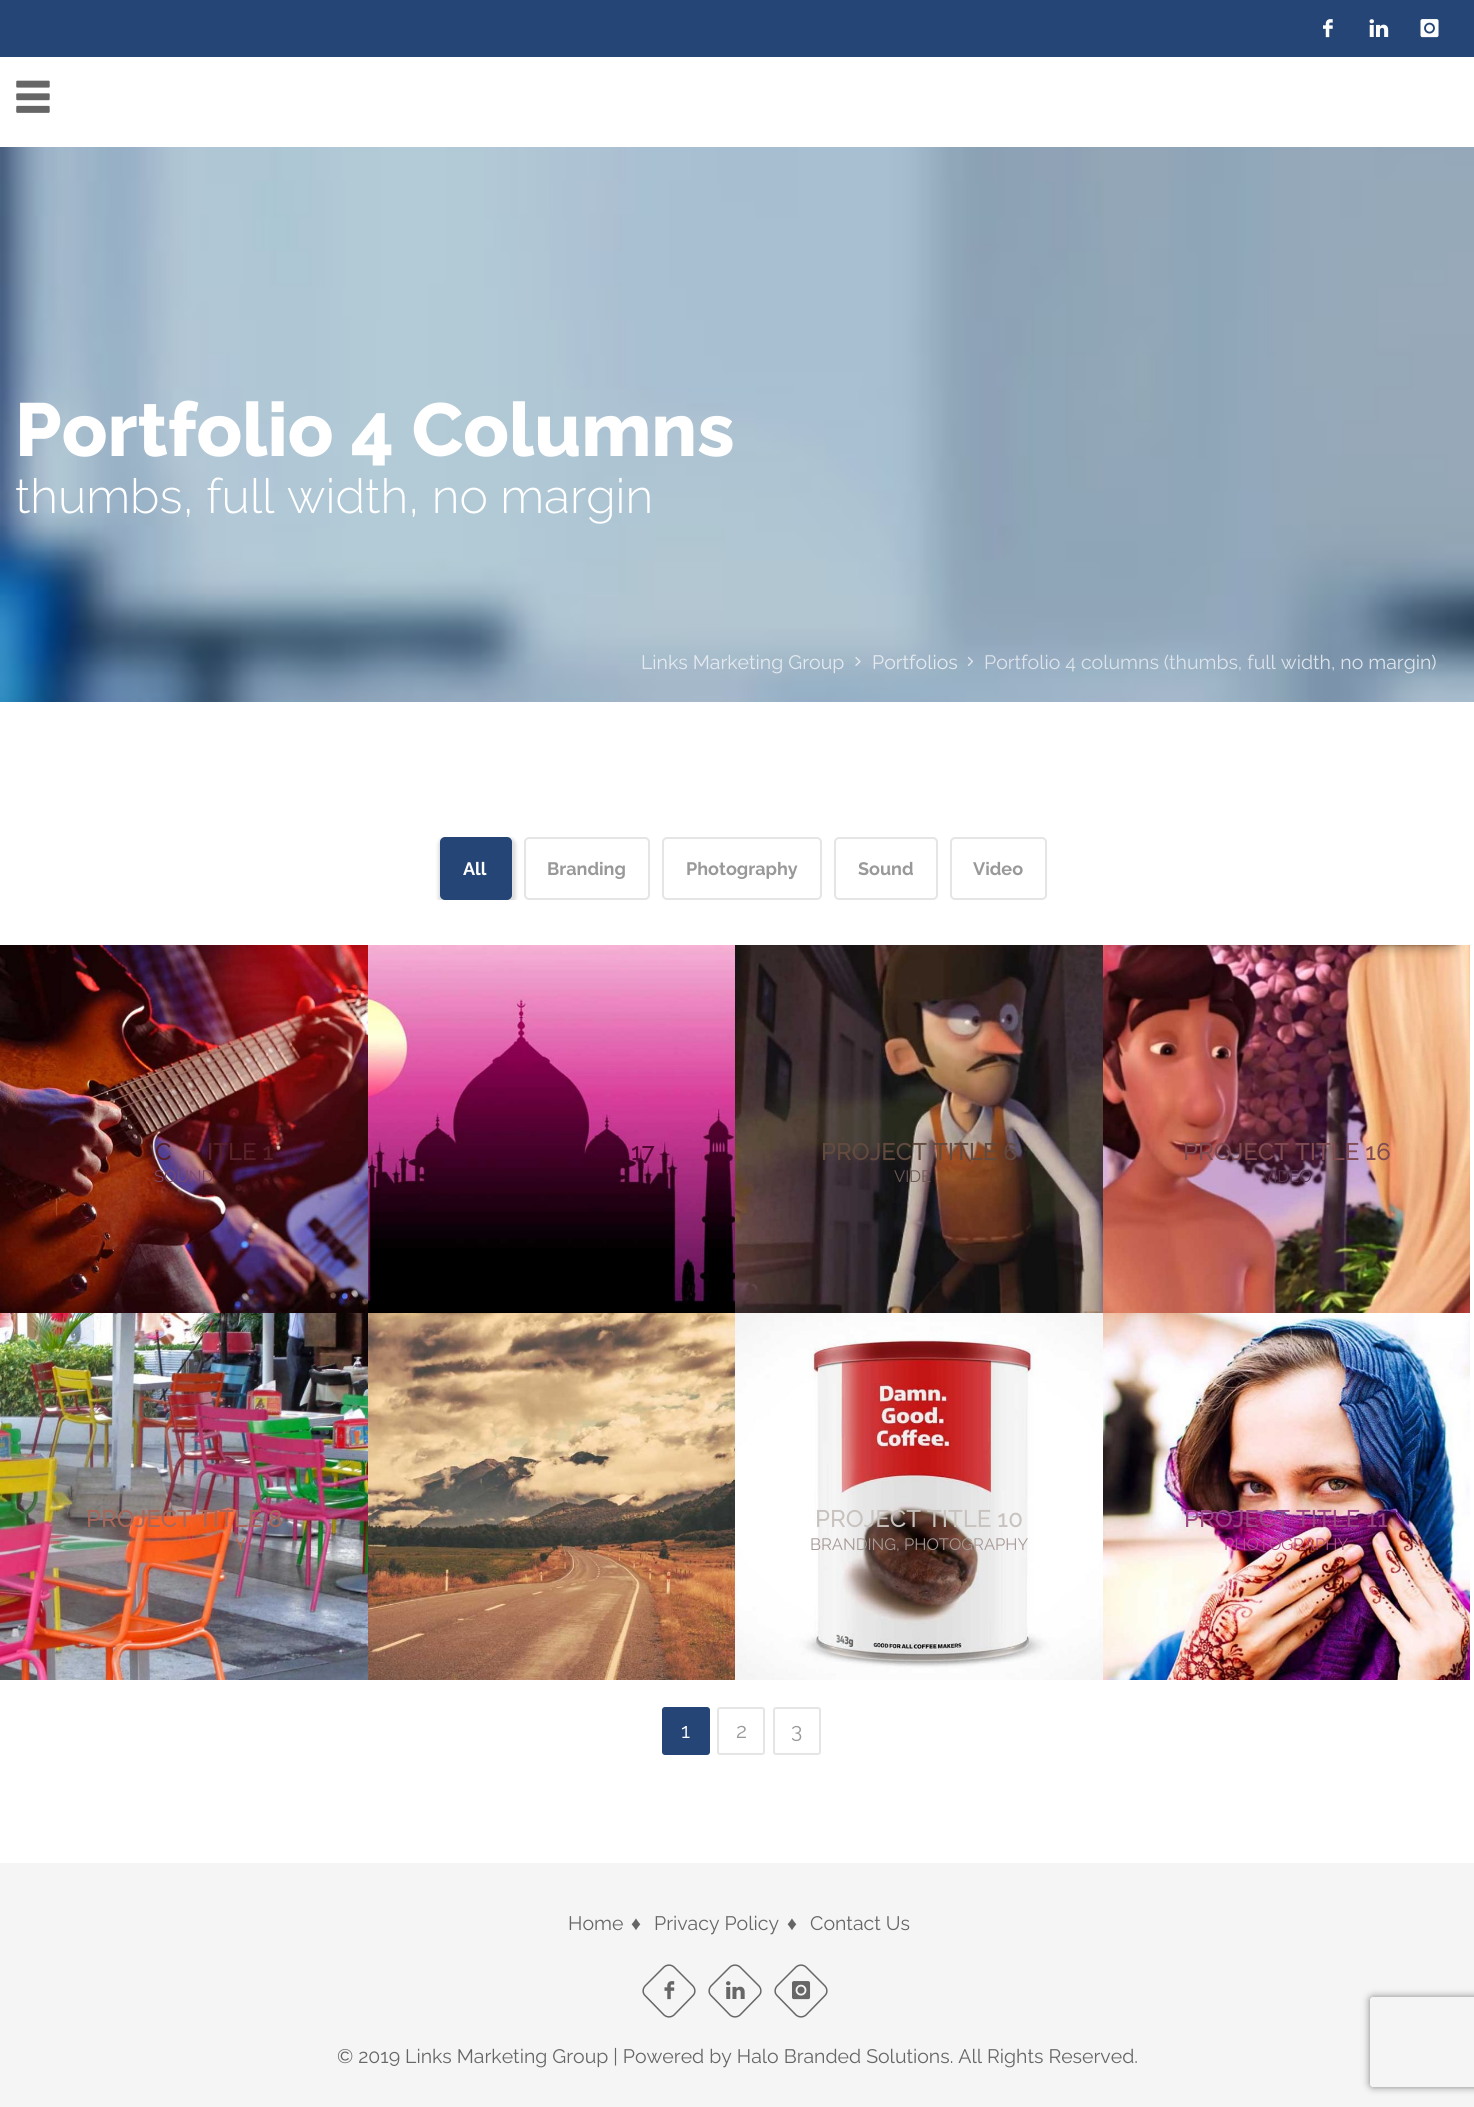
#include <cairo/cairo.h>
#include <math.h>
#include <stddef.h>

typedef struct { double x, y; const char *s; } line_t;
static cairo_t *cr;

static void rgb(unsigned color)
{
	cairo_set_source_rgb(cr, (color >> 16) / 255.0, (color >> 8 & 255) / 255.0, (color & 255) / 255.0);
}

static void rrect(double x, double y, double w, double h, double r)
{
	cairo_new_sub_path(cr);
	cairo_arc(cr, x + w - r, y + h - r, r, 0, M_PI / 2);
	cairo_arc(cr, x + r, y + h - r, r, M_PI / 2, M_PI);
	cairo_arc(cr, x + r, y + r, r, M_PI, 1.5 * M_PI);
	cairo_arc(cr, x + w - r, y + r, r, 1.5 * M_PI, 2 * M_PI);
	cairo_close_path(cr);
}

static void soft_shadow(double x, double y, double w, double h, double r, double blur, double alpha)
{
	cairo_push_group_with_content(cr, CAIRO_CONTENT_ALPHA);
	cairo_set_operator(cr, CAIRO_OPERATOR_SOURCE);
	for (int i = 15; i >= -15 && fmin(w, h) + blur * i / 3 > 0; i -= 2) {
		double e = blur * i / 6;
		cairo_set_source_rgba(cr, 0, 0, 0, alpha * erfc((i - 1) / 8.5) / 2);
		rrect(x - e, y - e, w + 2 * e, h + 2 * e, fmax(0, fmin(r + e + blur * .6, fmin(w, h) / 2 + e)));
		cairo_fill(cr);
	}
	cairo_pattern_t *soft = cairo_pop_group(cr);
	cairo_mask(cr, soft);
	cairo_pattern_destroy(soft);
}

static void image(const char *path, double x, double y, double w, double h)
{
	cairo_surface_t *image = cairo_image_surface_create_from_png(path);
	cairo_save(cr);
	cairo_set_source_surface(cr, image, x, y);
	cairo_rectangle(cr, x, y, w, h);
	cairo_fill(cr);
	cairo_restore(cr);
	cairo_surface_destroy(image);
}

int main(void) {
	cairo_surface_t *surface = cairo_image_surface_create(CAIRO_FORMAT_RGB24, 1474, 2107);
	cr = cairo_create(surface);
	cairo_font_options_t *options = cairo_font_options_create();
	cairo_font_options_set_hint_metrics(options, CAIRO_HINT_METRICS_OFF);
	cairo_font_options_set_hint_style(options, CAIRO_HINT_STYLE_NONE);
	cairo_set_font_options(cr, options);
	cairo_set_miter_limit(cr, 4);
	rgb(0xffffff);
	cairo_paint(cr);
	rgb(0x244576);
	cairo_rectangle(cr, 0, 0, 1474, 57);
	cairo_fill(cr);
	image("img/1.png", 1323, 19, 10, 19);
	image("img/2.png", 1369, 19, 20, 18);
	image("img/3.png", 1420, 19, 19, 19);
	image("img/4.png", 16, 80, 34, 33);
	image("img/5.png", 0, 147, 1474, 555);
	image("img/6.png", 855, 657, 6, 9);
	image("img/7.png", 967, 656, 7, 10);
	cairo_save(cr);
	cairo_rectangle(cr, 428, 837, 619, 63);
	cairo_clip(cr);
	rgb(0x000000);
	soft_shadow(438, 837, 78, 69, 8, 1.5, 0.13);
	cairo_restore(cr);
	rrect(441, 838, 70, 61, 4);
	cairo_fill_preserve(cr);
	cairo_stroke(cr);
	rrect(525, 838, 124, 61, 4);
	rgb(0xe5e5e5);
	cairo_stroke(cr);
	rrect(663, 838, 158, 61, 4);
	cairo_stroke(cr);
	rrect(835, 838, 102, 61, 4);
	cairo_stroke(cr);
	rrect(951, 838, 95, 61, 4);
	cairo_stroke(cr);
	image("img/8.png", 0, 945, 368, 368);
	image("img/9.png", 368, 945, 367, 368);
	image("img/10.png", 735, 945, 368, 368);
	image("img/11.png", 1103, 945, 367, 368);
	image("img/12.png", 0, 1313, 368, 367);
	image("img/13.png", 368, 1313, 367, 367);
	image("img/14.png", 735, 1313, 368, 367);
	image("img/15.png", 1103, 1313, 367, 367);
	rgb(0x244576);
	rrect(663, 1708, 46, 46, 2);
	cairo_fill_preserve(cr);
	cairo_stroke(cr);
	rrect(718, 1708, 46, 46, 2);
	rgb(0xe5e5e5);
	cairo_stroke(cr);
	rrect(774, 1708, 46, 46, 2);
	cairo_stroke(cr);
	rgb(0xf5f5f5);
	cairo_rectangle(cr, 0, 1863, 1474, 244);
	cairo_fill(cr);
	cairo_new_path(cr);
	cairo_move_to(cr, 674, 1967);
	cairo_line_to(cr, 693, 1986);
	cairo_curve_to(cr, 695.5, 1989, 695.5, 1993, 693, 1995.5);
	cairo_line_to(cr, 674, 2015);
	cairo_curve_to(cr, 671, 2017.5, 667, 2017.5, 664, 2015);
	cairo_line_to(cr, 645, 1995.5);
	cairo_curve_to(cr, 642.5, 1993, 642.5, 1989, 645, 1986);
	cairo_line_to(cr, 664, 1967);
	cairo_curve_to(cr, 667, 1964.5, 671, 1964.5, 674, 1967);
	cairo_close_path(cr);
	rgb(0x666666);
	cairo_set_line_width(cr, 1.5);
	cairo_stroke(cr);
	image("img/16.png", 664, 1981, 11, 19);
	cairo_new_path(cr);
	cairo_move_to(cr, 740, 1967);
	cairo_line_to(cr, 759, 1986);
	cairo_curve_to(cr, 761.5, 1989, 761.5, 1993, 759, 1995.5);
	cairo_line_to(cr, 740, 2015);
	cairo_curve_to(cr, 737, 2017.5, 733, 2017.5, 730, 2015);
	cairo_line_to(cr, 711, 1995.5);
	cairo_curve_to(cr, 708.5, 1993, 708.5, 1989, 711, 1986);
	cairo_line_to(cr, 730, 1967);
	cairo_curve_to(cr, 733, 1964.5, 737, 1964.5, 740, 1967);
	cairo_close_path(cr);
	cairo_stroke(cr);
	image("img/17.png", 726, 1981, 19, 18);
	cairo_new_path(cr);
	cairo_move_to(cr, 806, 1967);
	cairo_line_to(cr, 825, 1986);
	cairo_curve_to(cr, 827.5, 1989, 827.5, 1993, 825, 1995.5);
	cairo_line_to(cr, 806, 2015);
	cairo_curve_to(cr, 803, 2017.5, 799, 2017.5, 796, 2015);
	cairo_line_to(cr, 777, 1995.5);
	cairo_curve_to(cr, 774.5, 1993, 774.5, 1989, 777, 1986);
	cairo_line_to(cr, 796, 1967);
	cairo_curve_to(cr, 799, 1964.5, 803, 1964.5, 806, 1967);
	cairo_close_path(cr);
	cairo_stroke(cr);
	image("img/18.png", 792, 1981, 19, 19);
	cairo_save(cr);
	cairo_set_fill_rule(cr, CAIRO_FILL_RULE_EVEN_ODD);
	cairo_new_path(cr);
	cairo_move_to(cr, 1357, 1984);
	cairo_line_to(cr, 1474, 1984);
	cairo_line_to(cr, 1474, 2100);
	cairo_line_to(cr, 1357, 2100);
	cairo_close_path(cr);
	cairo_move_to(cr, 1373, 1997);
	cairo_line_to(cr, 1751, 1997);
	cairo_curve_to(cr, 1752.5, 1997, 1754, 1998.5, 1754, 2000);
	cairo_line_to(cr, 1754, 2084);
	cairo_curve_to(cr, 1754, 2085.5, 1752.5, 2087, 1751, 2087);
	cairo_line_to(cr, 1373, 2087);
	cairo_curve_to(cr, 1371.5, 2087, 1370, 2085.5, 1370, 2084);
	cairo_line_to(cr, 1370, 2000);
	cairo_curve_to(cr, 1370, 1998.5, 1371.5, 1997, 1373, 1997);
	cairo_close_path(cr);
	cairo_clip(cr);
	rgb(0x808080);
	soft_shadow(1370, 1997, 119, 90, 3, 4, 1);
	cairo_restore(cr);
	cairo_select_font_face(cr, "Raleway ExtraBold", CAIRO_FONT_SLANT_NORMAL, CAIRO_FONT_WEIGHT_NORMAL);
	cairo_set_font_size(cr, 75);
	rgb(0xffffff);
	cairo_move_to(cr, 15, 456);
	cairo_show_text(cr, "Portfolio 4 Columns");
	cairo_select_font_face(cr, "Raleway Light", CAIRO_FONT_SLANT_NORMAL, CAIRO_FONT_WEIGHT_NORMAL);
	cairo_set_font_size(cr, 48);
	cairo_move_to(cr, 15, 513);
	cairo_show_text(cr, "thumbs, full width, no margin");
	cairo_select_font_face(cr, "Raleway", CAIRO_FONT_SLANT_NORMAL, CAIRO_FONT_WEIGHT_NORMAL);
	cairo_set_font_size(cr, 19.5);
	rgb(0xe4eaef);
	cairo_move_to(cr, 641, 669);
	cairo_show_text(cr, "Links Marketing Group");
	cairo_move_to(cr, 872, 669);
	cairo_show_text(cr, "Portfolios");
	rgb(0xdde4eb);
	cairo_move_to(cr, 984, 669);
	cairo_show_text(cr, "Portfolio 4 columns (thumbs, full width, no margin)");
	cairo_select_font_face(cr, "Raleway", CAIRO_FONT_SLANT_NORMAL, CAIRO_FONT_WEIGHT_BOLD);
	cairo_set_font_size(cr, 18);
	rgb(0xffffff);
	cairo_move_to(cr, 463, 875);
	cairo_show_text(cr, "All");
	rgb(0x999999);
	{
		static const line_t items[] = {
			{547, 875, "Branding"},
			{686, 875, "Photography"},
			{858, 875, "Sound"},
			{973, 875, "Video"},
		};
		for (size_t i = 0; i < sizeof items / sizeof *items; i++) {
			cairo_move_to(cr, items[i].x, items[i].y);
			cairo_show_text(cr, items[i].s);
		}
	}
	cairo_select_font_face(cr, "Raleway Medium", CAIRO_FONT_SLANT_NORMAL, CAIRO_FONT_WEIGHT_NORMAL);
	cairo_set_font_size(cr, 24);
	rgb(0x5a212a);
	cairo_move_to(cr, 155, 1160);
	cairo_show_text(cr, "C");
	cairo_move_to(cr, 207, 1160);
	cairo_show_text(cr, "ITLE 1");
	cairo_select_font_face(cr, "Raleway", CAIRO_FONT_SLANT_NORMAL, CAIRO_FONT_WEIGHT_NORMAL);
	cairo_set_font_size(cr, 16.5);
	rgb(0x7a4969);
	cairo_move_to(cr, 154, 1182);
	cairo_show_text(cr, "SOUND");
	cairo_select_font_face(cr, "Raleway Medium", CAIRO_FONT_SLANT_NORMAL, CAIRO_FONT_WEIGHT_NORMAL);
	cairo_set_font_size(cr, 24);
	rgb(0x510633);
	cairo_move_to(cr, 631, 1160);
	cairo_show_text(cr, "17");
	rgb(0x624a3f);
	cairo_move_to(cr, 821, 1160);
	cairo_show_text(cr, "PROJECT TITLE 6");
	cairo_select_font_face(cr, "Raleway", CAIRO_FONT_SLANT_NORMAL, CAIRO_FONT_WEIGHT_NORMAL);
	cairo_set_font_size(cr, 16.5);
	rgb(0x6d5a54);
	cairo_move_to(cr, 894, 1182);
	cairo_show_text(cr, "VIDE");
	cairo_select_font_face(cr, "Raleway Medium", CAIRO_FONT_SLANT_NORMAL, CAIRO_FONT_WEIGHT_NORMAL);
	cairo_set_font_size(cr, 24);
	rgb(0x804b51);
	cairo_move_to(cr, 1183, 1160);
	cairo_show_text(cr, "PROJECT TITLE 16");
	cairo_select_font_face(cr, "Raleway", CAIRO_FONT_SLANT_NORMAL, CAIRO_FONT_WEIGHT_NORMAL);
	cairo_set_font_size(cr, 16.5);
	rgb(0x57354f);
	cairo_move_to(cr, 1262, 1182);
	cairo_show_text(cr, "VIDEO");
	cairo_select_font_face(cr, "Raleway Medium", CAIRO_FONT_SLANT_NORMAL, CAIRO_FONT_WEIGHT_NORMAL);
	cairo_set_font_size(cr, 24);
	rgb(0xa8675b);
	cairo_move_to(cr, 86, 1527);
	cairo_show_text(cr, "PROJECT TITLE 8");
	cairo_select_font_face(cr, "Raleway", CAIRO_FONT_SLANT_NORMAL, CAIRO_FONT_WEIGHT_NORMAL);
	cairo_set_font_size(cr, 16.5);
	rgb(0xd55f34);
	cairo_move_to(cr, 235, 1550);
	cairo_show_text(cr, "Y");
	cairo_select_font_face(cr, "Raleway Medium", CAIRO_FONT_SLANT_NORMAL, CAIRO_FONT_WEIGHT_NORMAL);
	cairo_set_font_size(cr, 24);
	rgb(0xc8c2bf);
	cairo_move_to(cr, 815, 1527);
	cairo_show_text(cr, "PROJECT TITLE 10");
	cairo_select_font_face(cr, "Raleway", CAIRO_FONT_SLANT_NORMAL, CAIRO_FONT_WEIGHT_NORMAL);
	cairo_set_font_size(cr, 16.5);
	rgb(0xa69894);
	cairo_move_to(cr, 810, 1550);
	cairo_show_text(cr, "BRANDING, PHOTOGRAPHY");
	cairo_select_font_face(cr, "Raleway Medium", CAIRO_FONT_SLANT_NORMAL, CAIRO_FONT_WEIGHT_NORMAL);
	cairo_set_font_size(cr, 24);
	rgb(0x9d4784);
	cairo_move_to(cr, 1184, 1527);
	cairo_show_text(cr, "PROJECT TITLE 11");
	cairo_select_font_face(cr, "Raleway", CAIRO_FONT_SLANT_NORMAL, CAIRO_FONT_WEIGHT_NORMAL);
	cairo_set_font_size(cr, 16.5);
	rgb(0xb55385);
	cairo_move_to(cr, 1224, 1550);
	cairo_show_text(cr, "PHOTOGRAPHY");
	cairo_set_font_size(cr, 21);
	rgb(0xffffff);
	cairo_move_to(cr, 681, 1738);
	cairo_show_text(cr, "1");
	rgb(0x999999);
	cairo_move_to(cr, 736, 1738);
	cairo_show_text(cr, "2");
	cairo_move_to(cr, 791, 1738);
	cairo_show_text(cr, "3");
	cairo_set_font_size(cr, 19.5);
	rgb(0x666666);
	cairo_move_to(cr, 568, 1930);
	cairo_show_text(cr, "Home");
	cairo_select_font_face(cr, "Liberation Serif", CAIRO_FONT_SLANT_NORMAL, CAIRO_FONT_WEIGHT_NORMAL);
	cairo_move_to(cr, 631, 1930);
	cairo_show_text(cr, "♦");
	cairo_select_font_face(cr, "Raleway", CAIRO_FONT_SLANT_NORMAL, CAIRO_FONT_WEIGHT_NORMAL);
	cairo_move_to(cr, 654, 1930);
	cairo_show_text(cr, "Privacy Policy");
	cairo_select_font_face(cr, "Liberation Serif", CAIRO_FONT_SLANT_NORMAL, CAIRO_FONT_WEIGHT_NORMAL);
	cairo_move_to(cr, 787, 1930);
	cairo_show_text(cr, "♦");
	cairo_select_font_face(cr, "Raleway", CAIRO_FONT_SLANT_NORMAL, CAIRO_FONT_WEIGHT_NORMAL);
	cairo_move_to(cr, 810, 1930);
	cairo_show_text(cr, "Contact Us");
	cairo_move_to(cr, 337, 2063);
	cairo_show_text(cr, "© 2019 Links Marketing Group | Powered by Halo Branded Solutions. All Rights Reserved.");
	cairo_surface_write_to_png(surface, "page.png");
	cairo_font_options_destroy(options);
	cairo_destroy(cr);
	cairo_surface_destroy(surface);
	return 0;
}
